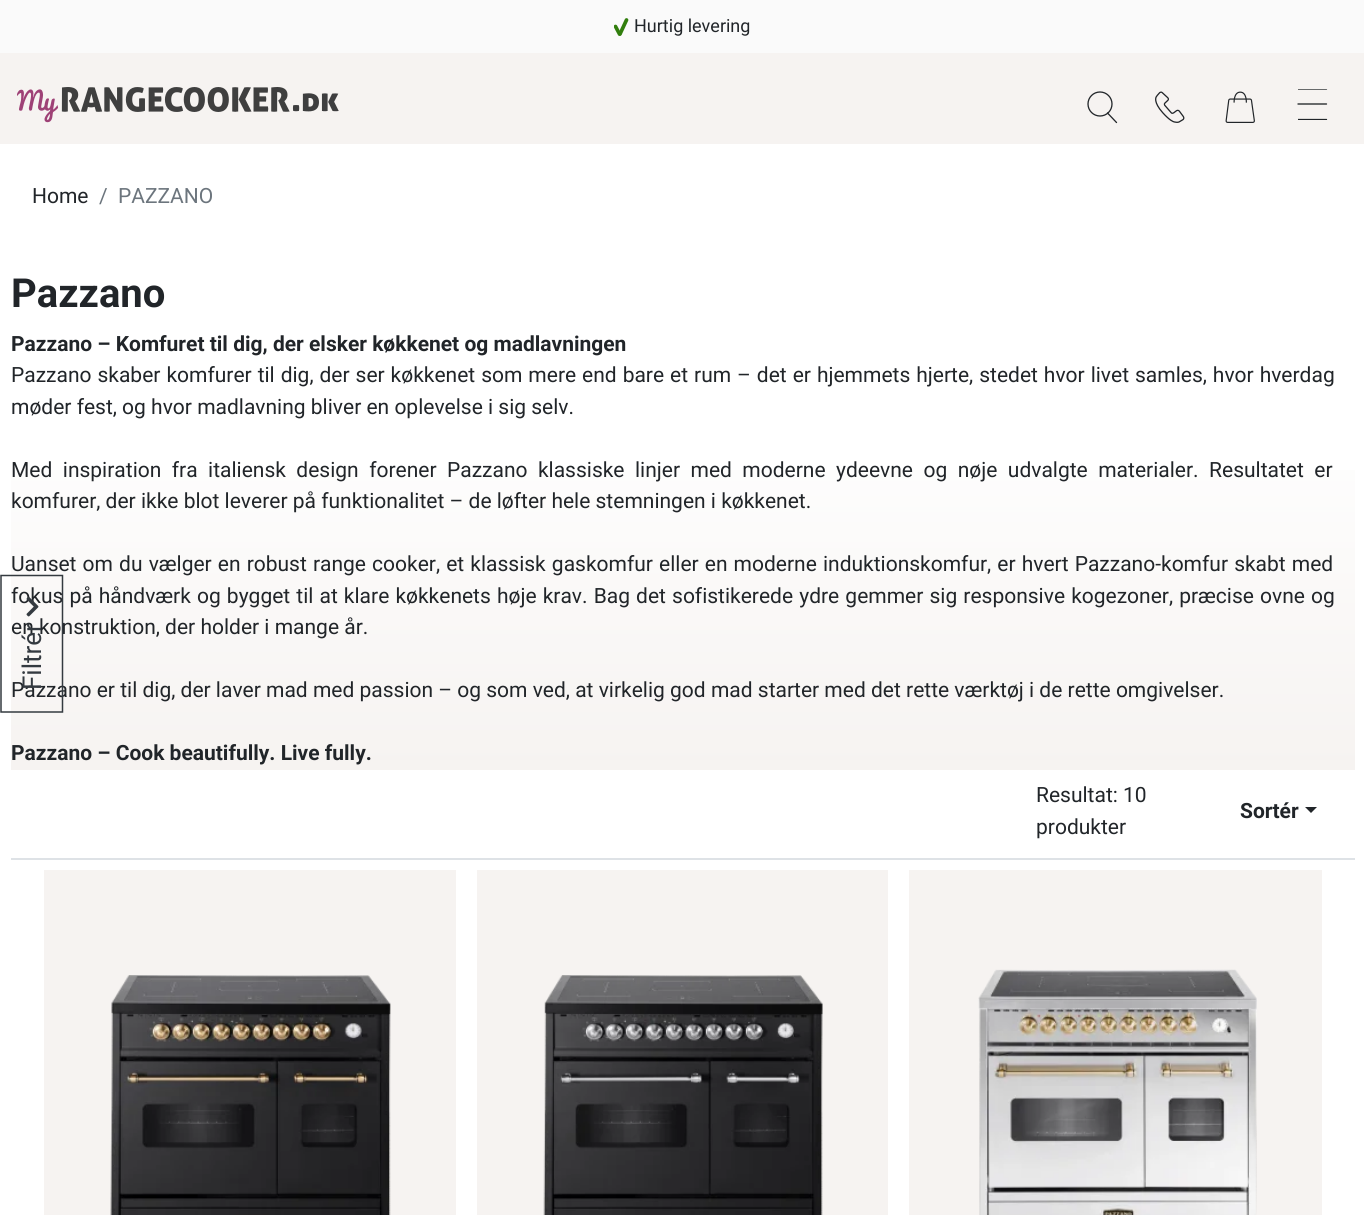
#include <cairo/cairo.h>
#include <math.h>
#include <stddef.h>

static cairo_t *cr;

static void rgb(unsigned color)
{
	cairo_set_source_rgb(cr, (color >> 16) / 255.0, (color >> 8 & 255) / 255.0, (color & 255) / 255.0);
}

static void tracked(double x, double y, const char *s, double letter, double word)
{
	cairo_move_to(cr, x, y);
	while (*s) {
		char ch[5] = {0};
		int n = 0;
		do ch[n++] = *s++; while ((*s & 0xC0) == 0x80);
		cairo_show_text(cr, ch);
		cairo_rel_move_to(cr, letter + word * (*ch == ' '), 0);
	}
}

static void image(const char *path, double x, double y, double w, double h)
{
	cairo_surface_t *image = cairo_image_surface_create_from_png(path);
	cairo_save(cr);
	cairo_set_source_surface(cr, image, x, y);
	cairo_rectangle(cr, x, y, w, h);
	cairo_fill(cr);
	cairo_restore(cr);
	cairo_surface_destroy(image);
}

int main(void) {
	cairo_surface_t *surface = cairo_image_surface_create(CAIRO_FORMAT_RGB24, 1364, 1215);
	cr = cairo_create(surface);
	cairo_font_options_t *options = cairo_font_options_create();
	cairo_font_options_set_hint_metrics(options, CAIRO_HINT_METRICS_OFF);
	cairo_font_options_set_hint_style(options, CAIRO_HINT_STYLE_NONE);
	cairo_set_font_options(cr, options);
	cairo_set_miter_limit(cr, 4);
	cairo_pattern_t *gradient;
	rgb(0xffffff);
	cairo_paint(cr);
	rgb(0xfafafa);
	cairo_rectangle(cr, 0, 0, 1364, 53);
	cairo_fill(cr);
	cairo_save(cr);
	cairo_rectangle(cr, 614, 18, 15, 18);
	cairo_clip(cr);
	cairo_new_path(cr);
	cairo_move_to(cr, 615.5, 26.5);
	cairo_line_to(cr, 619.5, 34);
	rgb(0x317e0d);
	cairo_set_line_width(cr, 3.7);
	cairo_set_line_cap(cr, CAIRO_LINE_CAP_ROUND);
	cairo_stroke(cr);
	cairo_restore(cr);
	cairo_new_path(cr);
	cairo_move_to(cr, 620, 34);
	cairo_line_to(cr, 626.5, 20);
	rgb(0x317e0d);
	cairo_set_line_width(cr, 3.7);
	cairo_set_line_cap(cr, CAIRO_LINE_CAP_ROUND);
	cairo_stroke(cr);
	rgb(0xf6f3f1);
	cairo_rectangle(cr, 0, 53, 1364, 91);
	cairo_fill(cr);
	image("img/1.png", 17, 87, 322, 36);
	cairo_new_path(cr);
	cairo_move_to(cr, 1107.5, 113);
	cairo_line_to(cr, 1116.5, 122.5);
	rgb(0x212529);
	cairo_set_line_width(cr, 1.3);
	cairo_stroke(cr);
	cairo_arc(cr, 1100, 104, 12, 0, 2 * M_PI);
	cairo_set_line_cap(cr, CAIRO_LINE_CAP_BUTT);
	cairo_stroke(cr);
	image("img/2.png", 1155, 91, 30, 32);
	image("img/3.png", 1225, 91, 30, 32);
	cairo_save(cr);
	cairo_rectangle(cr, 1298, 89, 30, 31);
	cairo_clip(cr);
	cairo_new_path(cr);
	cairo_move_to(cr, 1298, 89);
	cairo_line_to(cr, 1326.5, 89);
	cairo_set_line_cap(cr, CAIRO_LINE_CAP_ROUND);
	cairo_stroke(cr);
	cairo_restore(cr);
	cairo_new_path(cr);
	cairo_move_to(cr, 1298, 104);
	cairo_line_to(cr, 1326.5, 104);
	cairo_set_line_cap(cr, CAIRO_LINE_CAP_ROUND);
	cairo_stroke(cr);
	cairo_save(cr);
	cairo_rectangle(cr, 1298, 89, 30, 31);
	cairo_clip(cr);
	cairo_new_path(cr);
	cairo_move_to(cr, 1298, 119.5);
	cairo_line_to(cr, 1326.5, 119.5);
	cairo_stroke(cr);
	cairo_restore(cr);
	gradient = cairo_pattern_create_linear(683, 770, 683, 249);
	cairo_pattern_add_color_stop_rgba(gradient, 0, 0.965, 0.953, 0.945, 1);
	cairo_pattern_add_color_stop_rgba(gradient, 0.7, 1, 1, 1, 1);
	cairo_set_source(cr, gradient);
	cairo_pattern_destroy(gradient);
	cairo_rectangle(cr, 11, 470, 1344, 300);
	cairo_fill(cr);
	rgb(0xdee2e6);
	cairo_rectangle(cr, 11, 858, 1344, 2);
	cairo_fill(cr);
	rgb(0x212529);
	cairo_new_path(cr);
	cairo_move_to(cr, 1305, 807);
	cairo_line_to(cr, 1317, 807);
	cairo_line_to(cr, 1311, 813);
	cairo_close_path(cr);
	cairo_fill(cr);
	rgb(0xf6f3f1);
	cairo_rectangle(cr, 44, 870, 412, 345);
	cairo_fill(cr);
	image("img/5.png", 110, 975, 281, 240);
	cairo_rectangle(cr, 477, 870, 411, 345);
	cairo_fill(cr);
	image("img/6.png", 543, 975, 280, 240);
	cairo_rectangle(cr, 909, 870, 413, 345);
	cairo_fill(cr);
	image("img/7.png", 978, 969, 279, 246);
	cairo_select_font_face(cr, "Roboto", CAIRO_FONT_SLANT_NORMAL, CAIRO_FONT_WEIGHT_NORMAL);
	cairo_set_font_size(cr, 18);
	rgb(0x212529);
	cairo_move_to(cr, 634, 32);
	cairo_show_text(cr, "Hurtig levering");
	cairo_set_font_size(cr, 21);
	cairo_move_to(cr, 32, 203);
	cairo_show_text(cr, "Home");
	rgb(0x6c757d);
	cairo_move_to(cr, 99, 203);
	cairo_show_text(cr, "/");
	cairo_move_to(cr, 118, 203);
	cairo_show_text(cr, "PAZZANO");
	cairo_select_font_face(cr, "Roboto", CAIRO_FONT_SLANT_NORMAL, CAIRO_FONT_WEIGHT_BOLD);
	cairo_set_font_size(cr, 40);
	rgb(0x212529);
	cairo_move_to(cr, 11, 307);
	cairo_show_text(cr, "Pazzano");
	cairo_set_font_size(cr, 21);
	cairo_move_to(cr, 11, 351);
	cairo_show_text(cr, "Pazzano – Komfuret til dig, der elsker køkkenet og madlavningen");
	cairo_select_font_face(cr, "Roboto", CAIRO_FONT_SLANT_NORMAL, CAIRO_FONT_WEIGHT_NORMAL);
	tracked(11, 382, "Pazzano skaber komfurer til dig, der ser køkkenet som mere end bare et rum – det er hjemmets hjerte, stedet hvor livet samles, hvor hverdag", 0, 0.75);
	cairo_move_to(cr, 11, 414);
	cairo_show_text(cr, "møder fest, og hvor madlavning bliver en oplevelse i sig selv.");
	tracked(11, 477, "Med inspiration fra italiensk design forener Pazzano klassiske linjer med moderne ydeevne og nøje udvalgte materialer. Resultatet er", 0, 5.25);
	cairo_move_to(cr, 11, 508);
	cairo_show_text(cr, "komfurer, der ikke blot leverer på funktionalitet – de løfter hele stemningen i køkkenet.");
	tracked(11, 571, "Uanset om du vælger en robust range cooker, et klassisk gaskomfur eller en moderne induktionskomfur, er hvert Pazzano-komfur skabt med", 0, 0.9);
	tracked(11, 603, "fokus på håndværk og bygget til at klare køkkenets høje krav. Bag det sofistikerede ydre gemmer sig responsive kogezoner, præcise ovne og", 0, 0.9);
	cairo_move_to(cr, 11, 634);
	cairo_show_text(cr, "en konstruktion, der holder i mange år.");
	cairo_move_to(cr, 11, 697);
	cairo_show_text(cr, "Pazzano er til dig, der laver mad med passion – og som ved, at virkelig god mad starter med det rette værktøj i de rette omgivelser.");
	cairo_select_font_face(cr, "Roboto", CAIRO_FONT_SLANT_NORMAL, CAIRO_FONT_WEIGHT_BOLD);
	cairo_move_to(cr, 11, 760);
	cairo_show_text(cr, "Pazzano – Cook beautifully. Live fully.");
	cairo_new_path(cr);
	cairo_move_to(cr, 1, 712);
	cairo_line_to(cr, 1, 575.5);
	cairo_line_to(cr, 62.5, 575.5);
	cairo_line_to(cr, 62.5, 712);
	cairo_close_path(cr);
	rgb(0x343a40);
	cairo_set_line_width(cr, 1.5);
	cairo_set_line_cap(cr, CAIRO_LINE_CAP_BUTT);
	cairo_stroke(cr);
	image("img/4.png", 26, 597, 13, 20);
	cairo_select_font_face(cr, "Roboto", CAIRO_FONT_SLANT_NORMAL, CAIRO_FONT_WEIGHT_NORMAL);
	cairo_set_font_size(cr, 26);
	cairo_save(cr);
	cairo_translate(cr, 41, 690);
	cairo_rotate(cr, -90 * M_PI / 180);
	cairo_move_to(cr, 0, 0);
	cairo_show_text(cr, "Filtrér");
	cairo_restore(cr);
	cairo_set_font_size(cr, 21);
	rgb(0x212529);
	cairo_move_to(cr, 1036, 802);
	cairo_show_text(cr, "Resultat: 10");
	cairo_move_to(cr, 1036, 834);
	cairo_show_text(cr, "produkter");
	cairo_select_font_face(cr, "Roboto", CAIRO_FONT_SLANT_NORMAL, CAIRO_FONT_WEIGHT_BOLD);
	cairo_move_to(cr, 1240, 818);
	cairo_show_text(cr, "Sortér");
	cairo_surface_write_to_png(surface, "page.png");
	cairo_font_options_destroy(options);
	cairo_destroy(cr);
	cairo_surface_destroy(surface);
	return 0;
}
